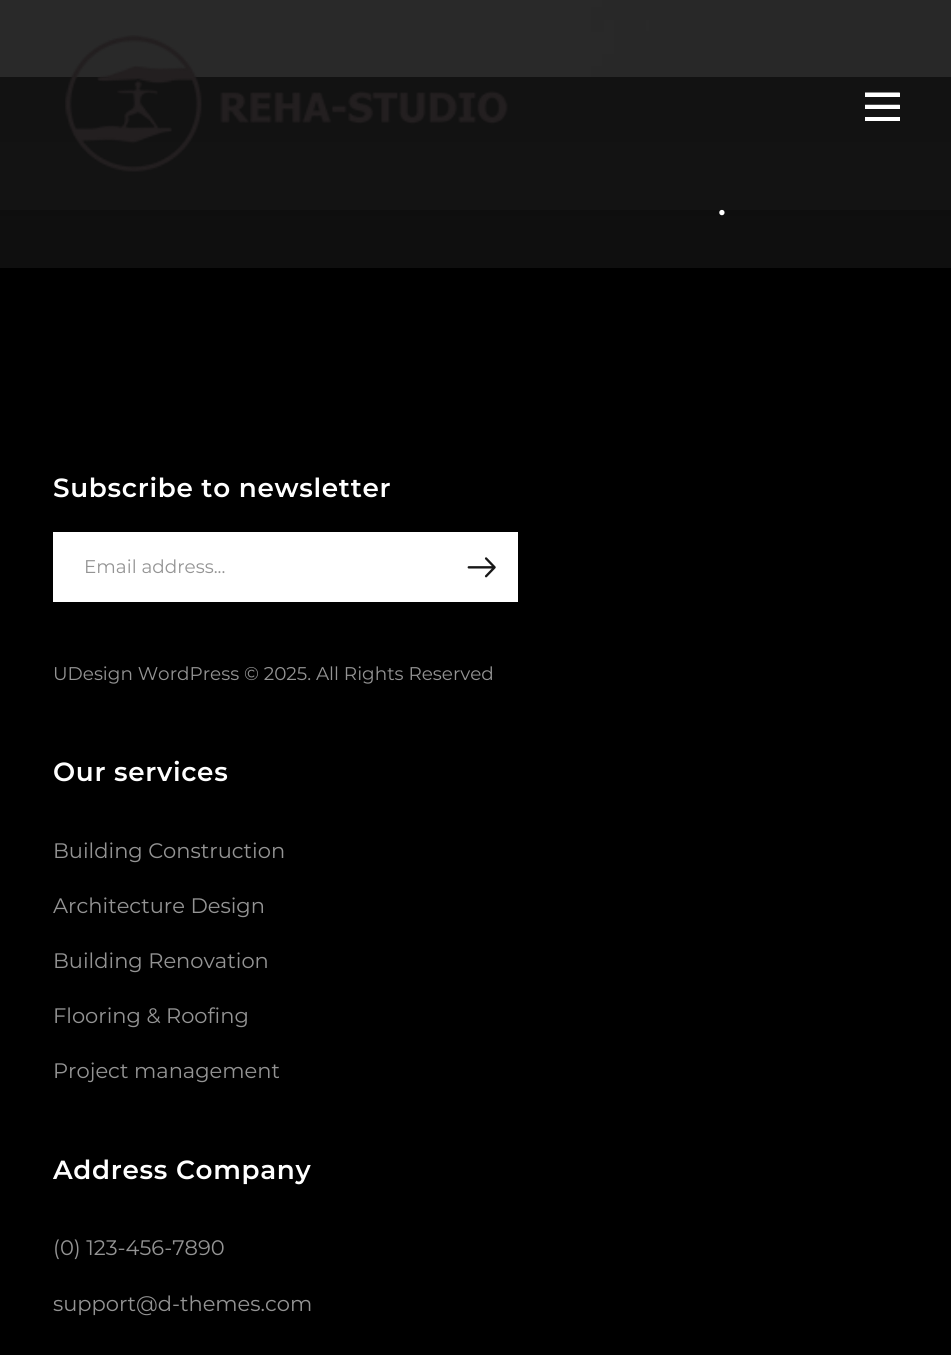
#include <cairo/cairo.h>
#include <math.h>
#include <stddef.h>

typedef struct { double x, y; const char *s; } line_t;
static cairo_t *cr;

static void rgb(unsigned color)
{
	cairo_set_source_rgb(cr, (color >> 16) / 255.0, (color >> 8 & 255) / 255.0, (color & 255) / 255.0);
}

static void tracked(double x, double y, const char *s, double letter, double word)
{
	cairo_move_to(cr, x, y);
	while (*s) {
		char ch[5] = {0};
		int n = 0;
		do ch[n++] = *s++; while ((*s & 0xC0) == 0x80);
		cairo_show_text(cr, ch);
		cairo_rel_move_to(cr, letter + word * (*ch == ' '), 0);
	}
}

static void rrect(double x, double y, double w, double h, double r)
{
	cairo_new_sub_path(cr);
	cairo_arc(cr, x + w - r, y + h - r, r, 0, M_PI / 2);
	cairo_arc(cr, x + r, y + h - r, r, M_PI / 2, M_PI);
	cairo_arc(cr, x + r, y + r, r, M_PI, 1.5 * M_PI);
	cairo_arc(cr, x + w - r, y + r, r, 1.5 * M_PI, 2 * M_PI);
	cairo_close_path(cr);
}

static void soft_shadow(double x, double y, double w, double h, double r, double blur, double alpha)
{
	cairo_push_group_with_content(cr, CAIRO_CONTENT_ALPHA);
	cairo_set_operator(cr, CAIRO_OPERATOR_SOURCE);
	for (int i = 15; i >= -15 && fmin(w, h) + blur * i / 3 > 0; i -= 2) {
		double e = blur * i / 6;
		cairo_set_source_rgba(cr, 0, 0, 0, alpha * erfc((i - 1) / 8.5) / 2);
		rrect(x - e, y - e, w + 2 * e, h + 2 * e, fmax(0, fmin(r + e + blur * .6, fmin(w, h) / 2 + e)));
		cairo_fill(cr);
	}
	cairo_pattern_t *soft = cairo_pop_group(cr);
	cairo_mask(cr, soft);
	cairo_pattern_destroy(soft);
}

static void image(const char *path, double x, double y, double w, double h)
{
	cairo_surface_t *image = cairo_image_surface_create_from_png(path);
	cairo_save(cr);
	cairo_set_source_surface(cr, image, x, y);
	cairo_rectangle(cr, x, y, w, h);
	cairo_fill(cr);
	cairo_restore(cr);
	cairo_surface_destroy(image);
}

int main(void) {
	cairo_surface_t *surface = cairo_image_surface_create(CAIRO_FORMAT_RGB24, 951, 1355);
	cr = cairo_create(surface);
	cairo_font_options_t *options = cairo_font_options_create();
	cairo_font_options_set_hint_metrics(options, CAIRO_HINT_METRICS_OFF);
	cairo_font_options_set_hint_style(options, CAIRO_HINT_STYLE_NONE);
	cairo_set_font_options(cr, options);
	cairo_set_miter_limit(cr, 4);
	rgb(0xffffff);
	cairo_paint(cr);
	image("img/1.png", 0, 0, 951, 77);
	rgb(0x000000);
	cairo_rectangle(cr, 0, 77, 951, 1278);
	cairo_fill(cr);
	rgb(0x0f0f0f);
	cairo_rectangle(cr, 0, 142, 951, 126);
	cairo_fill(cr);
	cairo_save(cr);
	cairo_rectangle(cr, 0, 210, 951, 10);
	cairo_clip(cr);
	rgb(0x000000);
	soft_shadow(-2, -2, 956, 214, 0, 9, 0.1);
	cairo_restore(cr);
	cairo_set_source_rgba(cr, 0.082, 0.082, 0.082, 0.9);
	cairo_rectangle(cr, 0, 0, 951, 210);
	cairo_fill(cr);
	image("img/2.png", 65, 35, 443, 137);
	image("img/3.png", 865, 92, 35, 29);
	rgb(0xffffff);
	cairo_rectangle(cr, 53, 532, 465, 70);
	cairo_fill(cr);
	image("img/4.png", 467, 557, 29, 21);
	cairo_select_font_face(cr, "Montserrat SemiBold", CAIRO_FONT_SLANT_NORMAL, CAIRO_FONT_WEIGHT_NORMAL);
	cairo_set_font_size(cr, 32);
	tracked(718, 215, ".", 1, 0);
	cairo_set_font_size(cr, 26.25);
	tracked(53, 497, "Subscribe to newsletter", 0.7, 0);
	cairo_select_font_face(cr, "Montserrat", CAIRO_FONT_SLANT_NORMAL, CAIRO_FONT_WEIGHT_NORMAL);
	cairo_set_font_size(cr, 18.4);
	rgb(0x949494);
	cairo_move_to(cr, 84, 573);
	cairo_show_text(cr, "Email address...");
	cairo_move_to(cr, 53, 680);
	cairo_show_text(cr, "UDesign WordPress © 2025. All Rights Reserved");
	cairo_select_font_face(cr, "Montserrat SemiBold", CAIRO_FONT_SLANT_NORMAL, CAIRO_FONT_WEIGHT_NORMAL);
	cairo_set_font_size(cr, 26.25);
	rgb(0xffffff);
	tracked(53, 781, "Our services", 0.7, 0);
	cairo_select_font_face(cr, "Montserrat", CAIRO_FONT_SLANT_NORMAL, CAIRO_FONT_WEIGHT_NORMAL);
	cairo_set_font_size(cr, 21);
	rgb(0x949494);
	{
		static const line_t items[] = {
			{53, 858, "Building Construction"},
			{53, 913, "Architecture Design"},
			{53, 968, "Building Renovation"},
			{53, 1023, "Flooring & Roofing"},
			{53, 1078, "Project management"},
		};
		for (size_t i = 0; i < sizeof items / sizeof *items; i++) {
			cairo_move_to(cr, items[i].x, items[i].y);
			cairo_show_text(cr, items[i].s);
		}
	}
	cairo_select_font_face(cr, "Montserrat SemiBold", CAIRO_FONT_SLANT_NORMAL, CAIRO_FONT_WEIGHT_NORMAL);
	cairo_set_font_size(cr, 26.25);
	rgb(0xffffff);
	tracked(53, 1179, "Address Company", 0.7, 0);
	cairo_select_font_face(cr, "Montserrat", CAIRO_FONT_SLANT_NORMAL, CAIRO_FONT_WEIGHT_NORMAL);
	cairo_set_font_size(cr, 21);
	rgb(0x949494);
	cairo_move_to(cr, 53, 1255);
	cairo_show_text(cr, "(0) 123-456-7890");
	cairo_move_to(cr, 53, 1311);
	cairo_show_text(cr, "support@d-themes.com");
	cairo_surface_write_to_png(surface, "page.png");
	cairo_font_options_destroy(options);
	cairo_destroy(cr);
	cairo_surface_destroy(surface);
	return 0;
}
